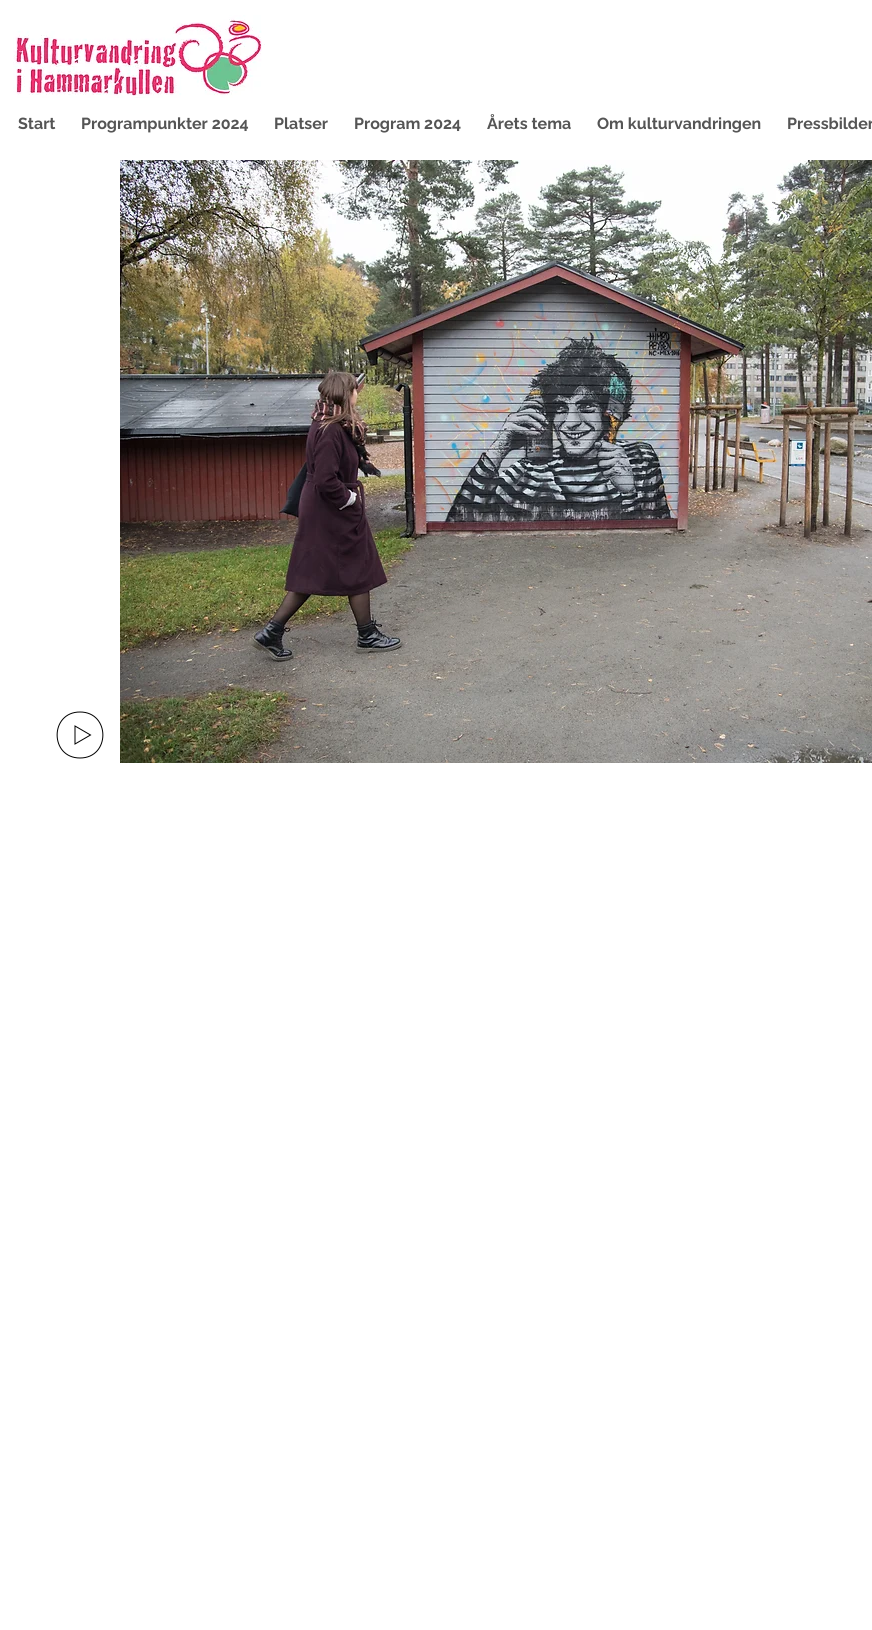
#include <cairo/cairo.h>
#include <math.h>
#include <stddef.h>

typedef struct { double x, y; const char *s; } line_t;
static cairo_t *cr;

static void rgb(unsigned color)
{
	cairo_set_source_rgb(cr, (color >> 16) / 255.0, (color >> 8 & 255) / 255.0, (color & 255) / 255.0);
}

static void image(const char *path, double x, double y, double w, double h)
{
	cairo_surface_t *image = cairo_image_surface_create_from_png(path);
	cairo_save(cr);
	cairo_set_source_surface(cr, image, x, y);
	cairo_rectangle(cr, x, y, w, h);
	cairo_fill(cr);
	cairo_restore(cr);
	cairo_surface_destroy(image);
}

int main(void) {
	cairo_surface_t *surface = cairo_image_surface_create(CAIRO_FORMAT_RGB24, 872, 1630);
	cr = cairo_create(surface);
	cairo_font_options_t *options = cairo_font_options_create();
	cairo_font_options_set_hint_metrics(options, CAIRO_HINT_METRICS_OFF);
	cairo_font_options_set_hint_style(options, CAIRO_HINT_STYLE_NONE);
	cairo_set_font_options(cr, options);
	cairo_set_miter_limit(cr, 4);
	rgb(0xffffff);
	cairo_paint(cr);
	image("img/1.png", 13, 15, 252, 83);
	cairo_new_path(cr);
	cairo_move_to(cr, 80, 712);
	cairo_curve_to(cr, 49.5, 712, 49.5, 758, 80, 758);
	cairo_curve_to(cr, 110.5, 758, 110.5, 712, 80, 712);
	cairo_close_path(cr);
	cairo_move_to(cr, 75, 744);
	cairo_line_to(cr, 75, 726);
	cairo_line_to(cr, 90.5, 735);
	cairo_close_path(cr);
	rgb(0x000000);
	cairo_set_line_width(cr, 1);
	cairo_stroke(cr);
	image("img/2.png", 120, 160, 752, 603);
	cairo_select_font_face(cr, "Raleway", CAIRO_FONT_SLANT_NORMAL, CAIRO_FONT_WEIGHT_BOLD);
	cairo_set_font_size(cr, 16);
	rgb(0x555555);
	{
		static const line_t items[] = {
			{18, 129, "Start"},
			{81, 129, "Programpunkter 2024"},
			{274, 129, "Platser"},
			{354, 129, "Program 2024"},
			{487, 129, "Årets tema"},
			{597, 129, "Om kulturvandringen"},
			{787, 129, "Pressbilder"},
		};
		for (size_t i = 0; i < sizeof items / sizeof *items; i++) {
			cairo_move_to(cr, items[i].x, items[i].y);
			cairo_show_text(cr, items[i].s);
		}
	}
	cairo_surface_write_to_png(surface, "page.png");
	cairo_font_options_destroy(options);
	cairo_destroy(cr);
	cairo_surface_destroy(surface);
	return 0;
}
